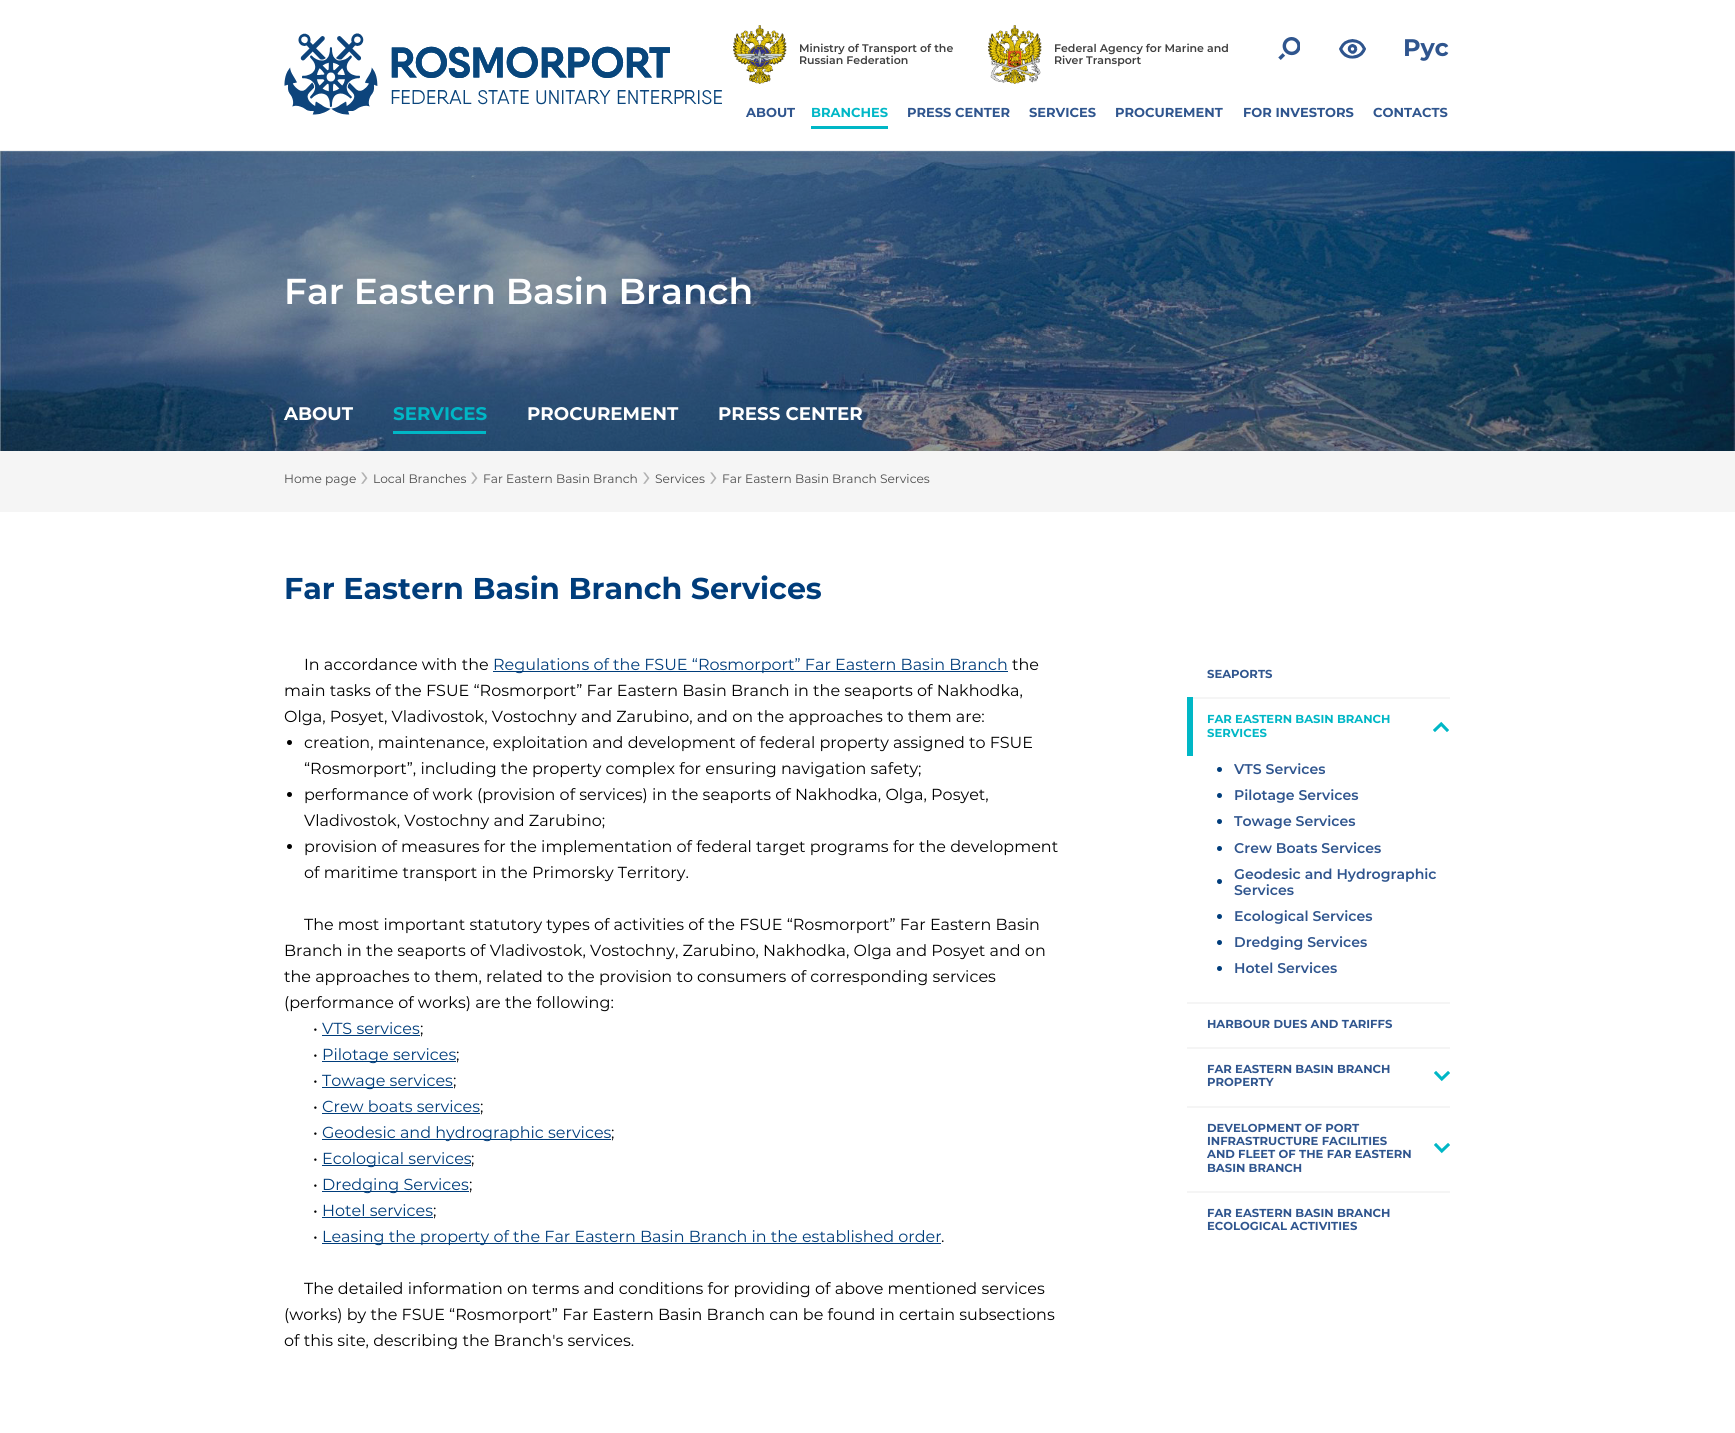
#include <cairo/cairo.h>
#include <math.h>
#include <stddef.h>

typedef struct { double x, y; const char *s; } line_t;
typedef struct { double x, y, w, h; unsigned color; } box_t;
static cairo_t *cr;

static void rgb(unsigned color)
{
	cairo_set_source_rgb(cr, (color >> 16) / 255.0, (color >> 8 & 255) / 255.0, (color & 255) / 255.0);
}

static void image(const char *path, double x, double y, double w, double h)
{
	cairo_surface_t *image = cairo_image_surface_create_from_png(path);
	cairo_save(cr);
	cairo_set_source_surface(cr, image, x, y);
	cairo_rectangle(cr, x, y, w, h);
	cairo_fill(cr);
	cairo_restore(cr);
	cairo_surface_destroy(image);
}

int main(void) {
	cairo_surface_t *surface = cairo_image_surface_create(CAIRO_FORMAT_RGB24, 1735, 1433);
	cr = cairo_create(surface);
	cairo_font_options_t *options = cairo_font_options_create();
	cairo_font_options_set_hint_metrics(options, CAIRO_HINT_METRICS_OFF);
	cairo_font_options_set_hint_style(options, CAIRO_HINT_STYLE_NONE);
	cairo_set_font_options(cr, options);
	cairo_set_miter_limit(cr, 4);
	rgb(0xffffff);
	cairo_paint(cr);
	image("img/1.png", 284, 33, 438, 82);
	image("img/2.png", 733, 25, 54, 59);
	image("img/3.png", 988, 25, 54, 59);
	image("img/4.png", 1278, 37, 22, 23);
	image("img/5.png", 1339, 39, 27, 20);
	image("img/6.png", 1405, 39, 44, 22);
	rgb(0x00b7c6);
	cairo_rectangle(cr, 811, 126, 77, 3);
	cairo_fill(cr);
	rgb(0xf1f1f1);
	cairo_rectangle(cr, 0, 150, 1735, 1);
	cairo_fill(cr);
	image("img/7.png", 0, 151, 1735, 300);
	{
		static const box_t items[] = {
			{393, 431, 93, 3, 0x00b7c6},
			{0, 451, 1735, 61, 0xf5f5f5},
			{493, 671, 515, 1, 0x003d7b},
		};
		for (size_t i = 0; i < sizeof items / sizeof *items; i++) {
			rgb(items[i].color);
			cairo_rectangle(cr, items[i].x, items[i].y, items[i].w, items[i].h);
			cairo_fill(cr);
		}
	}
	rgb(0x000000);
	cairo_arc(cr, 289.5, 742.5, 2.5, 0, 2 * M_PI);
	cairo_fill(cr);
	cairo_arc(cr, 289.5, 794.5, 2.5, 0, 2 * M_PI);
	cairo_fill(cr);
	cairo_arc(cr, 289.5, 846.5, 2.5, 0, 2 * M_PI);
	cairo_fill(cr);
	{
		static const box_t items[] = {
			{322, 1035, 98, 1, 0x003d7b},
			{322, 1061, 134, 1, 0x003d7b},
			{322, 1087, 131, 1, 0x003d7b},
			{322, 1113, 158, 1, 0x003d7b},
			{322, 1139, 289, 1, 0x003d7b},
			{322, 1165, 149, 1, 0x003d7b},
			{322, 1191, 147, 1, 0x003d7b},
			{322, 1217, 111, 1, 0x003d7b},
			{322, 1243, 619, 1, 0x003d7b},
			{1187, 697, 263, 2, 0xf5f5f5},
			{1187, 1002, 263, 2, 0xf5f5f5},
			{1187, 697, 6, 59, 0x00b7c6},
		};
		for (size_t i = 0; i < sizeof items / sizeof *items; i++) {
			rgb(items[i].color);
			cairo_rectangle(cr, items[i].x, items[i].y, items[i].w, items[i].h);
			cairo_fill(cr);
		}
	}
	image("img/8.png", 1433, 721, 16, 11);
	rgb(0x003d7b);
	cairo_arc(cr, 1219.5, 769.5, 2.5, 0, 2 * M_PI);
	cairo_fill(cr);
	cairo_arc(cr, 1219.5, 795.5, 2.5, 0, 2 * M_PI);
	cairo_fill(cr);
	cairo_arc(cr, 1219.5, 821.5, 2.5, 0, 2 * M_PI);
	cairo_fill(cr);
	cairo_arc(cr, 1219.5, 848.5, 2.5, 0, 2 * M_PI);
	cairo_fill(cr);
	cairo_arc(cr, 1219.5, 881.5, 2.5, 0, 2 * M_PI);
	cairo_fill(cr);
	cairo_arc(cr, 1219.5, 916.5, 2.5, 0, 2 * M_PI);
	cairo_fill(cr);
	cairo_arc(cr, 1219.5, 942.5, 2.5, 0, 2 * M_PI);
	cairo_fill(cr);
	cairo_arc(cr, 1219.5, 968.5, 2.5, 0, 2 * M_PI);
	cairo_fill(cr);
	rgb(0xf5f5f5);
	cairo_rectangle(cr, 1187, 1047, 263, 2);
	cairo_fill(cr);
	cairo_rectangle(cr, 1187, 1106, 263, 2);
	cairo_fill(cr);
	image("img/9.png", 1434, 1071, 16, 11);
	cairo_rectangle(cr, 1187, 1191, 263, 2);
	cairo_fill(cr);
	image("img/9.png", 1434, 1143, 16, 11);
	cairo_select_font_face(cr, "Montserrat SemiBold", CAIRO_FONT_SLANT_NORMAL, CAIRO_FONT_WEIGHT_NORMAL);
	cairo_set_font_size(cr, 11);
	rgb(0x3e3e3e);
	{
		static const line_t items[] = {
			{799, 52, "Ministry of Transport of the"},
			{799, 64, "Russian Federation"},
			{1054, 52, "Federal Agency for Marine and"},
			{1054, 64, "River Transport"},
		};
		for (size_t i = 0; i < sizeof items / sizeof *items; i++) {
			cairo_move_to(cr, items[i].x, items[i].y);
			cairo_show_text(cr, items[i].s);
		}
	}
	cairo_select_font_face(cr, "Montserrat", CAIRO_FONT_SLANT_NORMAL, CAIRO_FONT_WEIGHT_BOLD);
	cairo_set_font_size(cr, 13);
	rgb(0x2f558e);
	cairo_move_to(cr, 746, 117);
	cairo_show_text(cr, "ABOUT");
	rgb(0x00b7c6);
	cairo_move_to(cr, 811, 117);
	cairo_show_text(cr, "BRANCHES");
	rgb(0x2f558e);
	{
		static const line_t items[] = {
			{907, 117, "PRESS CENTER"},
			{1029, 117, "SERVICES"},
			{1115, 117, "PROCUREMENT"},
			{1243, 117, "FOR INVESTORS"},
			{1373, 117, "CONTACTS"},
		};
		for (size_t i = 0; i < sizeof items / sizeof *items; i++) {
			cairo_move_to(cr, items[i].x, items[i].y);
			cairo_show_text(cr, items[i].s);
		}
	}
	cairo_select_font_face(cr, "Montserrat SemiBold", CAIRO_FONT_SLANT_NORMAL, CAIRO_FONT_WEIGHT_NORMAL);
	cairo_set_font_size(cr, 36);
	rgb(0xffffff);
	cairo_move_to(cr, 284, 304);
	cairo_show_text(cr, "Far Eastern Basin Branch");
	cairo_select_font_face(cr, "Montserrat", CAIRO_FONT_SLANT_NORMAL, CAIRO_FONT_WEIGHT_BOLD);
	cairo_set_font_size(cr, 18.25);
	cairo_move_to(cr, 284, 420);
	cairo_show_text(cr, "ABOUT");
	rgb(0x00b7c6);
	cairo_move_to(cr, 393, 420);
	cairo_show_text(cr, "SERVICES");
	rgb(0xffffff);
	cairo_move_to(cr, 527, 420);
	cairo_show_text(cr, "PROCUREMENT");
	cairo_move_to(cr, 718, 420);
	cairo_show_text(cr, "PRESS CENTER");
	cairo_select_font_face(cr, "Montserrat", CAIRO_FONT_SLANT_NORMAL, CAIRO_FONT_WEIGHT_NORMAL);
	cairo_set_font_size(cr, 12.2);
	rgb(0x4b4b4b);
	cairo_move_to(cr, 284, 483);
	cairo_show_text(cr, "Home page");
	cairo_set_font_size(cr, 30);
	rgb(0xb1b1b1);
	cairo_move_to(cr, 360, 486);
	cairo_show_text(cr, "›");
	cairo_set_font_size(cr, 12.2);
	rgb(0x4b4b4b);
	cairo_move_to(cr, 373, 483);
	cairo_show_text(cr, "Local Branches");
	cairo_set_font_size(cr, 30);
	rgb(0xb1b1b1);
	cairo_move_to(cr, 470, 486);
	cairo_show_text(cr, "›");
	cairo_set_font_size(cr, 12.2);
	rgb(0x4b4b4b);
	cairo_move_to(cr, 483, 483);
	cairo_show_text(cr, "Far Eastern Basin Branch");
	cairo_set_font_size(cr, 30);
	rgb(0xb1b1b1);
	cairo_move_to(cr, 642, 486);
	cairo_show_text(cr, "›");
	cairo_set_font_size(cr, 12.2);
	rgb(0x4b4b4b);
	cairo_move_to(cr, 655, 483);
	cairo_show_text(cr, "Services");
	cairo_set_font_size(cr, 30);
	rgb(0xb1b1b1);
	cairo_move_to(cr, 709, 486);
	cairo_show_text(cr, "›");
	cairo_set_font_size(cr, 12.2);
	rgb(0x4b4b4b);
	cairo_move_to(cr, 722, 483);
	cairo_show_text(cr, "Far Eastern Basin Branch Services");
	cairo_select_font_face(cr, "Montserrat", CAIRO_FONT_SLANT_NORMAL, CAIRO_FONT_WEIGHT_BOLD);
	cairo_set_font_size(cr, 30.1);
	rgb(0x003d7b);
	cairo_move_to(cr, 284, 599);
	cairo_show_text(cr, "Far Eastern Basin Branch Services");
	cairo_select_font_face(cr, "Montserrat", CAIRO_FONT_SLANT_NORMAL, CAIRO_FONT_WEIGHT_NORMAL);
	cairo_set_font_size(cr, 16);
	rgb(0x000000);
	cairo_move_to(cr, 304, 670);
	cairo_show_text(cr, "In accordance with the");
	rgb(0x003d7b);
	cairo_move_to(cr, 493, 670);
	cairo_show_text(cr, "Regulations of the FSUE “Rosmorport” Far Eastern Basin Branch");
	rgb(0x000000);
	{
		static const line_t items[] = {
			{1012, 670, "the"},
			{284, 696, "main tasks of the FSUE “Rosmorport” Far Eastern Basin Branch in the seaports of Nakhodka,"},
			{284, 722, "Olga, Posyet, Vladivostok, Vostochny and Zarubino, and on the approaches to them are:"},
			{304, 748, "creation, maintenance, exploitation and development of federal property assigned to FSUE"},
			{304, 774, "“Rosmorport”, including the property complex for ensuring navigation safety;"},
			{304, 800, "performance of work (provision of services) in the seaports of Nakhodka, Olga, Posyet,"},
			{304, 826, "Vladivostok, Vostochny and Zarubino;"},
			{304, 852, "provision of measures for the implementation of federal target programs for the development"},
			{304, 878, "of maritime transport in the Primorsky Territory."},
			{304, 930, "The most important statutory types of activities of the FSUE “Rosmorport” Far Eastern Basin"},
			{284, 956, "Branch in the seaports of Vladivostok, Vostochny, Zarubino, Nakhodka, Olga and Posyet and on"},
			{284, 982, "the approaches to them, related to the provision to consumers of corresponding services"},
			{284, 1008, "(performance of works) are the following:"},
			{313, 1034, "•"},
		};
		for (size_t i = 0; i < sizeof items / sizeof *items; i++) {
			cairo_move_to(cr, items[i].x, items[i].y);
			cairo_show_text(cr, items[i].s);
		}
	}
	rgb(0x003d7b);
	cairo_move_to(cr, 322, 1034);
	cairo_show_text(cr, "VTS services");
	rgb(0x000000);
	cairo_move_to(cr, 420, 1034);
	cairo_show_text(cr, ";");
	cairo_move_to(cr, 313, 1060);
	cairo_show_text(cr, "•");
	rgb(0x003d7b);
	cairo_move_to(cr, 322, 1060);
	cairo_show_text(cr, "Pilotage services");
	rgb(0x000000);
	cairo_move_to(cr, 456, 1060);
	cairo_show_text(cr, ";");
	cairo_move_to(cr, 313, 1086);
	cairo_show_text(cr, "•");
	rgb(0x003d7b);
	cairo_move_to(cr, 322, 1086);
	cairo_show_text(cr, "Towage services");
	rgb(0x000000);
	cairo_move_to(cr, 453, 1086);
	cairo_show_text(cr, ";");
	cairo_move_to(cr, 313, 1112);
	cairo_show_text(cr, "•");
	rgb(0x003d7b);
	cairo_move_to(cr, 322, 1112);
	cairo_show_text(cr, "Crew boats services");
	rgb(0x000000);
	cairo_move_to(cr, 480, 1112);
	cairo_show_text(cr, ";");
	cairo_move_to(cr, 313, 1138);
	cairo_show_text(cr, "•");
	rgb(0x003d7b);
	cairo_move_to(cr, 322, 1138);
	cairo_show_text(cr, "Geodesic and hydrographic services");
	rgb(0x000000);
	cairo_move_to(cr, 611, 1138);
	cairo_show_text(cr, ";");
	cairo_move_to(cr, 313, 1164);
	cairo_show_text(cr, "•");
	rgb(0x003d7b);
	cairo_move_to(cr, 322, 1164);
	cairo_show_text(cr, "Ecological services");
	rgb(0x000000);
	cairo_move_to(cr, 471, 1164);
	cairo_show_text(cr, ";");
	cairo_move_to(cr, 313, 1190);
	cairo_show_text(cr, "•");
	rgb(0x003d7b);
	cairo_move_to(cr, 322, 1190);
	cairo_show_text(cr, "Dredging Services");
	rgb(0x000000);
	cairo_move_to(cr, 469, 1190);
	cairo_show_text(cr, ";");
	cairo_move_to(cr, 313, 1216);
	cairo_show_text(cr, "•");
	rgb(0x003d7b);
	cairo_move_to(cr, 322, 1216);
	cairo_show_text(cr, "Hotel services");
	rgb(0x000000);
	cairo_move_to(cr, 433, 1216);
	cairo_show_text(cr, ";");
	cairo_move_to(cr, 313, 1242);
	cairo_show_text(cr, "•");
	rgb(0x003d7b);
	cairo_move_to(cr, 322, 1242);
	cairo_show_text(cr, "Leasing the property of the Far Eastern Basin Branch in the established order");
	rgb(0x000000);
	{
		static const line_t items[] = {
			{941, 1242, "."},
			{304, 1294, "The detailed information on terms and conditions for providing of above mentioned services"},
			{284, 1320, "(works) by the FSUE “Rosmorport” Far Eastern Basin Branch can be found in certain subsections"},
			{284, 1346, "of this site, describing the Branch's services."},
		};
		for (size_t i = 0; i < sizeof items / sizeof *items; i++) {
			cairo_move_to(cr, items[i].x, items[i].y);
			cairo_show_text(cr, items[i].s);
		}
	}
	cairo_select_font_face(cr, "Montserrat", CAIRO_FONT_SLANT_NORMAL, CAIRO_FONT_WEIGHT_BOLD);
	cairo_set_font_size(cr, 11.6);
	rgb(0x2f558e);
	cairo_move_to(cr, 1207, 678);
	cairo_show_text(cr, "SEAPORTS");
	rgb(0x00b7c6);
	cairo_move_to(cr, 1207, 723);
	cairo_show_text(cr, "FAR EASTERN BASIN BRANCH");
	cairo_move_to(cr, 1207, 737);
	cairo_show_text(cr, "SERVICES");
	cairo_select_font_face(cr, "Montserrat SemiBold", CAIRO_FONT_SLANT_NORMAL, CAIRO_FONT_WEIGHT_NORMAL);
	cairo_set_font_size(cr, 14.1);
	rgb(0x2f558e);
	{
		static const line_t items[] = {
			{1234, 774, "VTS Services"},
			{1234, 800, "Pilotage Services"},
			{1234, 826, "Towage Services"},
			{1234, 853, "Crew Boats Services"},
			{1234, 879, "Geodesic and Hydrographic"},
			{1234, 895, "Services"},
			{1234, 921, "Ecological Services"},
			{1234, 947, "Dredging Services"},
			{1234, 973, "Hotel Services"},
		};
		for (size_t i = 0; i < sizeof items / sizeof *items; i++) {
			cairo_move_to(cr, items[i].x, items[i].y);
			cairo_show_text(cr, items[i].s);
		}
	}
	cairo_select_font_face(cr, "Montserrat", CAIRO_FONT_SLANT_NORMAL, CAIRO_FONT_WEIGHT_BOLD);
	cairo_set_font_size(cr, 11.6);
	{
		static const line_t items[] = {
			{1207, 1028, "HARBOUR DUES AND TARIFFS"},
			{1207, 1073, "FAR EASTERN BASIN BRANCH"},
			{1207, 1086, "PROPERTY"},
			{1207, 1132, "DEVELOPMENT OF PORT"},
			{1207, 1145, "INFRASTRUCTURE FACILITIES"},
			{1207, 1158, "AND FLEET OF THE FAR EASTERN"},
			{1207, 1172, "BASIN BRANCH"},
			{1207, 1217, "FAR EASTERN BASIN BRANCH"},
			{1207, 1230, "ECOLOGICAL ACTIVITIES"},
		};
		for (size_t i = 0; i < sizeof items / sizeof *items; i++) {
			cairo_move_to(cr, items[i].x, items[i].y);
			cairo_show_text(cr, items[i].s);
		}
	}
	cairo_surface_write_to_png(surface, "page.png");
	cairo_font_options_destroy(options);
	cairo_destroy(cr);
	cairo_surface_destroy(surface);
	return 0;
}
